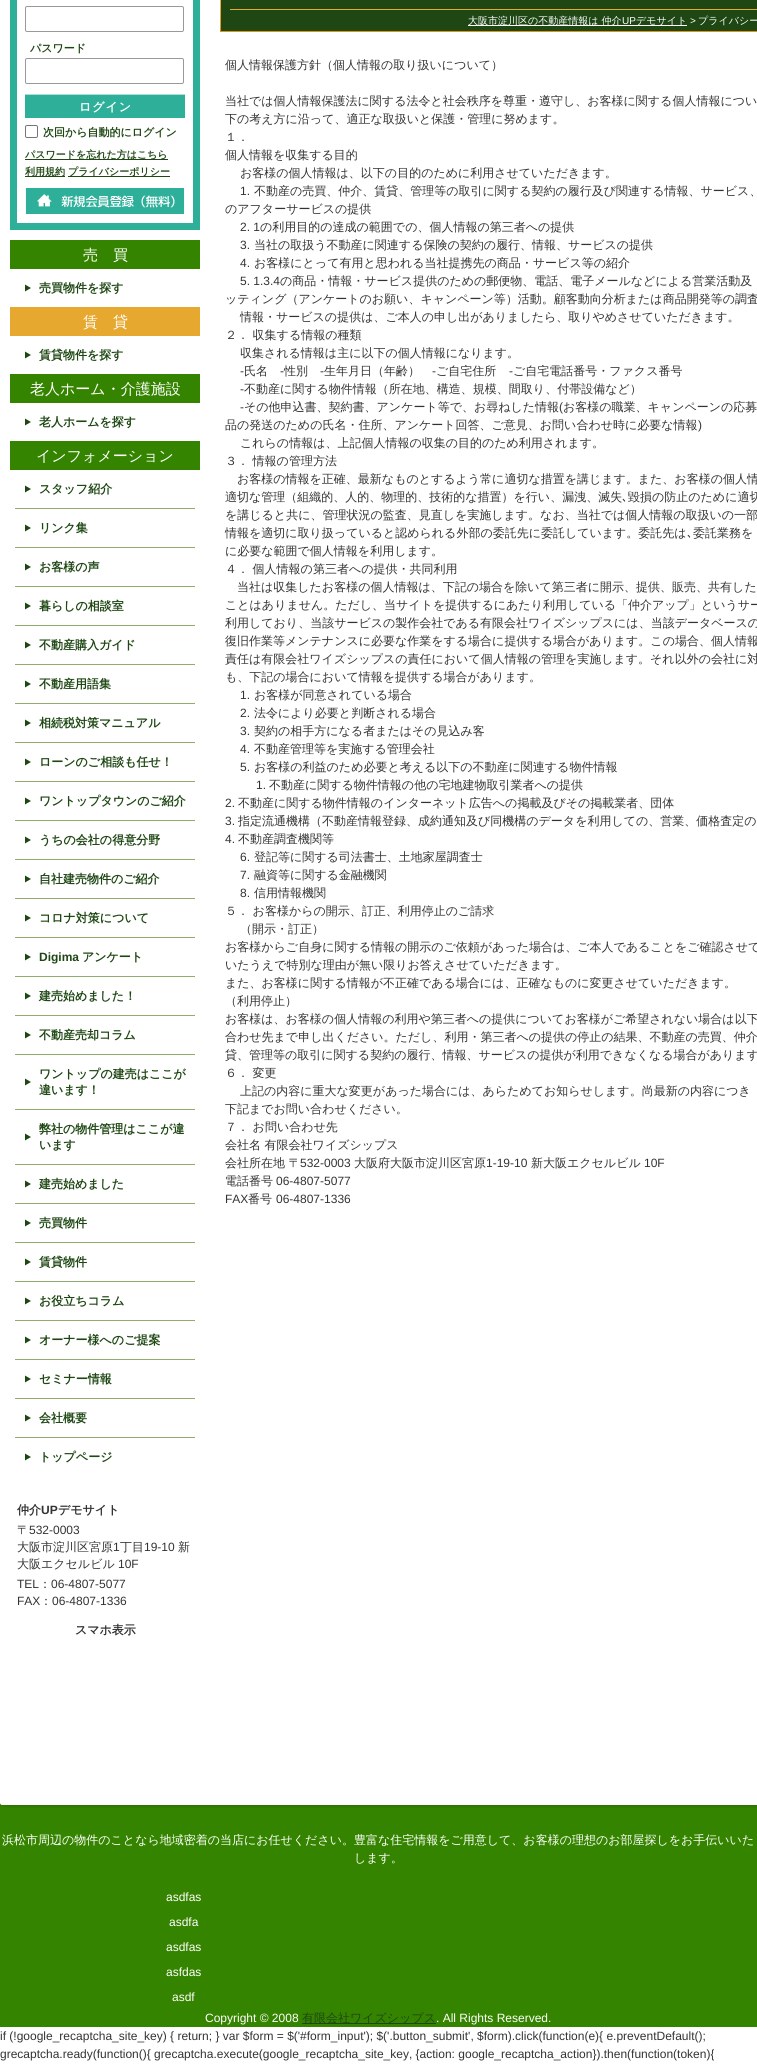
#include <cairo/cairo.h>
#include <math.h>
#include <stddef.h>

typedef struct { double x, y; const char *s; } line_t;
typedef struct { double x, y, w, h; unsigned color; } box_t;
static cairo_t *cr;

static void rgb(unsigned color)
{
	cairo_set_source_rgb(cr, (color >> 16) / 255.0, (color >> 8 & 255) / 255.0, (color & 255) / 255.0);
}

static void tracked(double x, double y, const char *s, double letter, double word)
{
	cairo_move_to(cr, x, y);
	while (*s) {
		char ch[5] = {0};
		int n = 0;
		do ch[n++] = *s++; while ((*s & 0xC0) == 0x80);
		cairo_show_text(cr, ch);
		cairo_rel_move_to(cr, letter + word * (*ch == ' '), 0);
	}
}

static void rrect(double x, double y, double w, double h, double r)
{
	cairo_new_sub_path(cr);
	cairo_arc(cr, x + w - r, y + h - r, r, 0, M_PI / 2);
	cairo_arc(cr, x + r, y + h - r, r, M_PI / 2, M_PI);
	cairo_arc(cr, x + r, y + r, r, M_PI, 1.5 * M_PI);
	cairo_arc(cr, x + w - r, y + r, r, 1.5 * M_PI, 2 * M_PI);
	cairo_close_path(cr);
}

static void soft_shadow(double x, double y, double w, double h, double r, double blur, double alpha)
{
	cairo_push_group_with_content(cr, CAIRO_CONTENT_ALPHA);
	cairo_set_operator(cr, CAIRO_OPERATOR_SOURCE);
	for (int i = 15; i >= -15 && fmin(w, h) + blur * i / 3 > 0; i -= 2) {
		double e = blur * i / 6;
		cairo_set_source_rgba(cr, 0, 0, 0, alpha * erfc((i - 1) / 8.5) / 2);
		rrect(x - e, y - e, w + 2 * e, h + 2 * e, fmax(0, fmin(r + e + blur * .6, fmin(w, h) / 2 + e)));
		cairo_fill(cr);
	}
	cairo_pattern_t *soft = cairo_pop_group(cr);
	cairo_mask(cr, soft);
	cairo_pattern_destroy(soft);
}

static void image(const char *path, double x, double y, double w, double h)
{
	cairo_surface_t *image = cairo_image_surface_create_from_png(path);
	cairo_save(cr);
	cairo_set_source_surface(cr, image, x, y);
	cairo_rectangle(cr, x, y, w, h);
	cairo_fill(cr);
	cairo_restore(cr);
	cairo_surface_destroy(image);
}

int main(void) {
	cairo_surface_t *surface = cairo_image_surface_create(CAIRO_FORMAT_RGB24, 757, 2070);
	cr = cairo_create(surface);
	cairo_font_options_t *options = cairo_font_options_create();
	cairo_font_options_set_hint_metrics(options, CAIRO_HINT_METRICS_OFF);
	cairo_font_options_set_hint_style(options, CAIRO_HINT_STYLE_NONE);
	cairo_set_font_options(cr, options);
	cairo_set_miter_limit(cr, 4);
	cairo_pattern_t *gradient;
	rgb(0xffffff);
	cairo_paint(cr);
	rgb(0x358400);
	cairo_rectangle(cr, 0, 1803, 757, 224);
	cairo_fill(cr);
	rgb(0x010101);
	soft_shadow(6, -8, 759, 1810, 0, 2.5, 0.87);
	soft_shadow(0, -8, 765, 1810, 0, 2.5, 0.87);
	rgb(0xffffff);
	cairo_new_path(cr);
	cairo_move_to(cr, 0, -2);
	cairo_line_to(cr, 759, -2);
	cairo_line_to(cr, 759, 1803);
	cairo_curve_to(cr, 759, 1804, 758, 1805, 757, 1805);
	cairo_line_to(cr, 2, 1805);
	cairo_curve_to(cr, 1, 1805, 0, 1804, 0, 1803);
	cairo_close_path(cr);
	cairo_fill(cr);
	{
		static const box_t items[] = {
			{193, 0, 7, 230, 0x2eaf9a},
			{10, 223, 190, 7, 0x2eaf9a},
			{10, 0, 7, 230, 0x2eaf9a},
		};
		for (size_t i = 0; i < sizeof items / sizeof *items; i++) {
			rgb(items[i].color);
			cairo_rectangle(cr, items[i].x, items[i].y, items[i].w, items[i].h);
			cairo_fill(cr);
		}
	}
	rrect(25.5, 6.5, 158, 25, 1.5);
	rgb(0x999999);
	cairo_set_line_width(cr, 1);
	cairo_stroke(cr);
	rrect(25.5, 58.5, 158, 25, 1.5);
	cairo_stroke(cr);
	rgb(0x2eaf9a);
	cairo_rectangle(cr, 25, 95, 160, 23);
	cairo_fill(cr);
	rgb(0xabdfd7);
	cairo_rectangle(cr, 25, 94, 160, 1);
	cairo_fill(cr);
	rrect(25.5, 125.5, 12, 12, 1.5);
	rgb(0x767676);
	cairo_stroke(cr);
	{
		static const box_t items[] = {
			{25, 159, 143, 1, 0x1e4713},
			{25, 176, 40, 1, 0x1e4713},
			{68, 176, 102, 1, 0x1e4713},
		};
		for (size_t i = 0; i < sizeof items / sizeof *items; i++) {
			rgb(items[i].color);
			cairo_rectangle(cr, items[i].x, items[i].y, items[i].w, items[i].h);
			cairo_fill(cr);
		}
	}
	image("img/1.png", 25, 188, 160, 26);
	rgb(0x358400);
	cairo_rectangle(cr, 10, 240, 190, 29);
	cairo_fill(cr);
	image("img/2.png", 25, 284, 6, 8);
	rgb(0xe6a82f);
	cairo_rectangle(cr, 10, 307, 190, 29);
	cairo_fill(cr);
	image("img/2.png", 25, 351, 6, 8);
	rgb(0x358400);
	cairo_rectangle(cr, 10, 374, 190, 29);
	cairo_fill(cr);
	image("img/2.png", 25, 418, 6, 8);
	cairo_rectangle(cr, 10, 441, 190, 29);
	cairo_fill(cr);
	image("img/2.png", 25, 485, 6, 8);
	rgb(0x8fad6d);
	cairo_rectangle(cr, 15, 508, 180, 1);
	cairo_fill(cr);
	image("img/2.png", 25, 524, 6, 8);
	cairo_rectangle(cr, 15, 547, 180, 1);
	cairo_fill(cr);
	image("img/2.png", 25, 563, 6, 8);
	cairo_rectangle(cr, 15, 586, 180, 1);
	cairo_fill(cr);
	image("img/2.png", 25, 602, 6, 8);
	cairo_rectangle(cr, 15, 625, 180, 1);
	cairo_fill(cr);
	image("img/2.png", 25, 641, 6, 8);
	cairo_rectangle(cr, 15, 664, 180, 1);
	cairo_fill(cr);
	image("img/2.png", 25, 680, 6, 8);
	cairo_rectangle(cr, 15, 703, 180, 1);
	cairo_fill(cr);
	image("img/2.png", 25, 719, 6, 8);
	cairo_rectangle(cr, 15, 742, 180, 1);
	cairo_fill(cr);
	image("img/2.png", 25, 758, 6, 8);
	cairo_rectangle(cr, 15, 781, 180, 1);
	cairo_fill(cr);
	image("img/2.png", 25, 797, 6, 8);
	cairo_rectangle(cr, 15, 820, 180, 1);
	cairo_fill(cr);
	image("img/2.png", 25, 836, 6, 8);
	cairo_rectangle(cr, 15, 859, 180, 1);
	cairo_fill(cr);
	image("img/2.png", 25, 875, 6, 8);
	cairo_rectangle(cr, 15, 898, 180, 1);
	cairo_fill(cr);
	image("img/2.png", 25, 914, 6, 8);
	cairo_rectangle(cr, 15, 937, 180, 1);
	cairo_fill(cr);
	image("img/2.png", 25, 953, 6, 8);
	cairo_rectangle(cr, 15, 976, 180, 1);
	cairo_fill(cr);
	image("img/2.png", 25, 992, 6, 8);
	cairo_rectangle(cr, 15, 1015, 180, 1);
	cairo_fill(cr);
	image("img/2.png", 25, 1031, 6, 8);
	cairo_rectangle(cr, 15, 1054, 180, 1);
	cairo_fill(cr);
	image("img/2.png", 25, 1078, 6, 8);
	cairo_rectangle(cr, 15, 1109, 180, 1);
	cairo_fill(cr);
	image("img/2.png", 25, 1133, 6, 8);
	cairo_rectangle(cr, 15, 1164, 180, 1);
	cairo_fill(cr);
	image("img/2.png", 25, 1180, 6, 8);
	cairo_rectangle(cr, 15, 1203, 180, 1);
	cairo_fill(cr);
	image("img/2.png", 25, 1219, 6, 8);
	cairo_rectangle(cr, 15, 1242, 180, 1);
	cairo_fill(cr);
	image("img/2.png", 25, 1258, 6, 8);
	cairo_rectangle(cr, 15, 1281, 180, 1);
	cairo_fill(cr);
	image("img/2.png", 25, 1297, 6, 8);
	cairo_rectangle(cr, 15, 1320, 180, 1);
	cairo_fill(cr);
	image("img/2.png", 25, 1336, 6, 8);
	cairo_rectangle(cr, 15, 1359, 180, 1);
	cairo_fill(cr);
	image("img/2.png", 25, 1375, 6, 8);
	cairo_rectangle(cr, 15, 1398, 180, 1);
	cairo_fill(cr);
	image("img/2.png", 25, 1414, 6, 8);
	cairo_rectangle(cr, 15, 1437, 180, 1);
	cairo_fill(cr);
	image("img/2.png", 25, 1453, 6, 8);
	rgb(0x1e4713);
	cairo_rectangle(cr, 221, 0, 536, 31);
	cairo_fill(cr);
	rgb(0xe1940e);
	cairo_rectangle(cr, 220, 31, 537, 1);
	cairo_fill(cr);
	gradient = cairo_pattern_create_linear(221, -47, 221, 31);
	cairo_pattern_add_color_stop_rgba(gradient, 0, 0.969, 0.871, 0.557, 1);
	cairo_pattern_add_color_stop_rgba(gradient, 1, 0.882, 0.58, 0.055, 1);
	cairo_set_source(cr, gradient);
	cairo_pattern_destroy(gradient);
	cairo_rectangle(cr, 220, 0, 1, 31);
	cairo_fill(cr);
	{
		static const box_t items[] = {
			{230, 9, 527, 1, 0xe7a82f},
			{468, 25, 219, 1, 0xffffff},
			{302, 2023, 134, 1, 0x1e4713},
		};
		for (size_t i = 0; i < sizeof items / sizeof *items; i++) {
			rgb(items[i].color);
			cairo_rectangle(cr, items[i].x, items[i].y, items[i].w, items[i].h);
			cairo_fill(cr);
		}
	}
	cairo_select_font_face(cr, "WenQuanYi Zen Hei", CAIRO_FONT_SLANT_NORMAL, CAIRO_FONT_WEIGHT_BOLD);
	cairo_set_font_size(cr, 11);
	cairo_move_to(cr, 30, 52);
	cairo_show_text(cr, "パスワード");
	cairo_set_font_size(cr, 12);
	rgb(0xffffff);
	tracked(79, 111, "ログイン", 1, 0);
	cairo_set_font_size(cr, 11);
	rgb(0x1e4713);
	cairo_move_to(cr, 43, 136);
	cairo_show_text(cr, "次回から自動的にログイン");
	cairo_set_font_size(cr, 10);
	{
		static const line_t items[] = {
			{25, 158, "パスワードを忘れた方はこちら"},
			{25, 175, "利用規約"},
			{68, 175, "プライバシーポリシー"},
		};
		for (size_t i = 0; i < sizeof items / sizeof *items; i++) {
			cairo_move_to(cr, items[i].x, items[i].y);
			cairo_show_text(cr, items[i].s);
		}
	}
	cairo_select_font_face(cr, "WenQuanYi Zen Hei Medium", CAIRO_FONT_SLANT_NORMAL, CAIRO_FONT_WEIGHT_NORMAL);
	cairo_set_font_size(cr, 15);
	rgb(0xffffff);
	tracked(83, 260, "売買", 15, 0);
	cairo_select_font_face(cr, "WenQuanYi Zen Hei", CAIRO_FONT_SLANT_NORMAL, CAIRO_FONT_WEIGHT_BOLD);
	cairo_set_font_size(cr, 12);
	rgb(0x1e4713);
	cairo_move_to(cr, 39, 292);
	cairo_show_text(cr, "売買物件を探す");
	cairo_select_font_face(cr, "WenQuanYi Zen Hei Medium", CAIRO_FONT_SLANT_NORMAL, CAIRO_FONT_WEIGHT_NORMAL);
	cairo_set_font_size(cr, 15);
	rgb(0xffffff);
	tracked(83, 327, "賃貸", 15, 0);
	cairo_select_font_face(cr, "WenQuanYi Zen Hei", CAIRO_FONT_SLANT_NORMAL, CAIRO_FONT_WEIGHT_BOLD);
	cairo_set_font_size(cr, 12);
	rgb(0x1e4713);
	cairo_move_to(cr, 39, 359);
	cairo_show_text(cr, "賃貸物件を探す");
	cairo_select_font_face(cr, "WenQuanYi Zen Hei Medium", CAIRO_FONT_SLANT_NORMAL, CAIRO_FONT_WEIGHT_NORMAL);
	cairo_set_font_size(cr, 15);
	rgb(0xffffff);
	cairo_move_to(cr, 30, 394);
	cairo_show_text(cr, "老人ホーム・介護施設");
	cairo_select_font_face(cr, "WenQuanYi Zen Hei", CAIRO_FONT_SLANT_NORMAL, CAIRO_FONT_WEIGHT_BOLD);
	cairo_set_font_size(cr, 12);
	rgb(0x1e4713);
	cairo_move_to(cr, 39, 426);
	cairo_show_text(cr, "老人ホームを探す");
	cairo_select_font_face(cr, "WenQuanYi Zen Hei Medium", CAIRO_FONT_SLANT_NORMAL, CAIRO_FONT_WEIGHT_NORMAL);
	cairo_set_font_size(cr, 15);
	rgb(0xffffff);
	cairo_move_to(cr, 36, 461);
	cairo_show_text(cr, "インフォメーション");
	cairo_select_font_face(cr, "WenQuanYi Zen Hei", CAIRO_FONT_SLANT_NORMAL, CAIRO_FONT_WEIGHT_BOLD);
	cairo_set_font_size(cr, 12);
	rgb(0x1e4713);
	{
		static const line_t items[] = {
			{39, 493, "スタッフ紹介"},
			{39, 532, "リンク集"},
			{39, 571, "お客様の声"},
			{39, 610, "暮らしの相談室"},
			{39, 649, "不動産購入ガイド"},
			{39, 688, "不動産用語集"},
			{39, 727, "相続税対策マニュアル"},
			{39, 766, "ローンのご相談も任せ！"},
			{39, 805, "ワントップタウンのご紹介"},
			{39, 844, "うちの会社の得意分野"},
			{39, 883, "自社建売物件のご紹介"},
			{39, 922, "コロナ対策について"},
		};
		for (size_t i = 0; i < sizeof items / sizeof *items; i++) {
			cairo_move_to(cr, items[i].x, items[i].y);
			cairo_show_text(cr, items[i].s);
		}
	}
	cairo_select_font_face(cr, "Liberation Sans", CAIRO_FONT_SLANT_NORMAL, CAIRO_FONT_WEIGHT_BOLD);
	cairo_move_to(cr, 39, 961);
	cairo_show_text(cr, "Digima");
	cairo_select_font_face(cr, "WenQuanYi Zen Hei", CAIRO_FONT_SLANT_NORMAL, CAIRO_FONT_WEIGHT_BOLD);
	{
		static const line_t items[] = {
			{82, 961, "アンケート"},
			{39, 1000, "建売始めました！"},
			{39, 1039, "不動産売却コラム"},
			{39, 1078, "ワントップの建売はここが"},
			{39, 1094, "違います！"},
			{39, 1133, "弊社の物件管理はここが違"},
			{39, 1149, "います"},
			{39, 1188, "建売始めました"},
			{39, 1227, "売買物件"},
			{39, 1266, "賃貸物件"},
			{39, 1305, "お役立ちコラム"},
			{39, 1344, "オーナー様へのご提案"},
			{39, 1383, "セミナー情報"},
			{39, 1422, "会社概要"},
			{39, 1461, "トップページ"},
		};
		for (size_t i = 0; i < sizeof items / sizeof *items; i++) {
			cairo_move_to(cr, items[i].x, items[i].y);
			cairo_show_text(cr, items[i].s);
		}
	}
	rgb(0x333333);
	cairo_move_to(cr, 17, 1514);
	cairo_show_text(cr, "仲介");
	cairo_select_font_face(cr, "Liberation Sans", CAIRO_FONT_SLANT_NORMAL, CAIRO_FONT_WEIGHT_BOLD);
	cairo_move_to(cr, 41, 1514);
	cairo_show_text(cr, "UP");
	cairo_select_font_face(cr, "WenQuanYi Zen Hei", CAIRO_FONT_SLANT_NORMAL, CAIRO_FONT_WEIGHT_BOLD);
	cairo_move_to(cr, 58, 1514);
	cairo_show_text(cr, "デモサイト");
	cairo_select_font_face(cr, "WenQuanYi Zen Hei Medium", CAIRO_FONT_SLANT_NORMAL, CAIRO_FONT_WEIGHT_NORMAL);
	cairo_move_to(cr, 17, 1534);
	cairo_show_text(cr, "〒");
	cairo_select_font_face(cr, "Liberation Sans", CAIRO_FONT_SLANT_NORMAL, CAIRO_FONT_WEIGHT_NORMAL);
	cairo_move_to(cr, 29, 1534);
	cairo_show_text(cr, "532-0003");
	cairo_select_font_face(cr, "WenQuanYi Zen Hei Medium", CAIRO_FONT_SLANT_NORMAL, CAIRO_FONT_WEIGHT_NORMAL);
	cairo_move_to(cr, 17, 1551);
	cairo_show_text(cr, "大阪市淀川区宮原");
	cairo_select_font_face(cr, "Liberation Sans", CAIRO_FONT_SLANT_NORMAL, CAIRO_FONT_WEIGHT_NORMAL);
	cairo_move_to(cr, 113, 1551);
	cairo_show_text(cr, "1");
	cairo_select_font_face(cr, "WenQuanYi Zen Hei Medium", CAIRO_FONT_SLANT_NORMAL, CAIRO_FONT_WEIGHT_NORMAL);
	cairo_move_to(cr, 120, 1551);
	cairo_show_text(cr, "丁目");
	cairo_select_font_face(cr, "Liberation Sans", CAIRO_FONT_SLANT_NORMAL, CAIRO_FONT_WEIGHT_NORMAL);
	cairo_move_to(cr, 144, 1551);
	cairo_show_text(cr, "19-10");
	cairo_select_font_face(cr, "WenQuanYi Zen Hei Medium", CAIRO_FONT_SLANT_NORMAL, CAIRO_FONT_WEIGHT_NORMAL);
	cairo_move_to(cr, 178, 1551);
	cairo_show_text(cr, "新");
	cairo_move_to(cr, 17, 1568);
	cairo_show_text(cr, "大阪エクセルビル");
	cairo_select_font_face(cr, "Liberation Sans", CAIRO_FONT_SLANT_NORMAL, CAIRO_FONT_WEIGHT_NORMAL);
	cairo_move_to(cr, 118, 1568);
	cairo_show_text(cr, "10F");
	cairo_move_to(cr, 17, 1588);
	cairo_show_text(cr, "TEL");
	cairo_select_font_face(cr, "WenQuanYi Zen Hei Medium", CAIRO_FONT_SLANT_NORMAL, CAIRO_FONT_WEIGHT_NORMAL);
	cairo_move_to(cr, 39, 1588);
	cairo_show_text(cr, "：");
	cairo_select_font_face(cr, "Liberation Sans", CAIRO_FONT_SLANT_NORMAL, CAIRO_FONT_WEIGHT_NORMAL);
	cairo_move_to(cr, 51, 1588);
	cairo_show_text(cr, "06-4807-5077");
	cairo_move_to(cr, 17, 1605);
	cairo_show_text(cr, "FAX");
	cairo_select_font_face(cr, "WenQuanYi Zen Hei Medium", CAIRO_FONT_SLANT_NORMAL, CAIRO_FONT_WEIGHT_NORMAL);
	cairo_move_to(cr, 40, 1605);
	cairo_show_text(cr, "：");
	cairo_select_font_face(cr, "Liberation Sans", CAIRO_FONT_SLANT_NORMAL, CAIRO_FONT_WEIGHT_NORMAL);
	cairo_move_to(cr, 52, 1605);
	cairo_show_text(cr, "06-4807-1336");
	cairo_select_font_face(cr, "WenQuanYi Zen Hei", CAIRO_FONT_SLANT_NORMAL, CAIRO_FONT_WEIGHT_BOLD);
	cairo_move_to(cr, 75, 1634);
	cairo_show_text(cr, "スマホ表示");
	cairo_select_font_face(cr, "WenQuanYi Zen Hei Medium", CAIRO_FONT_SLANT_NORMAL, CAIRO_FONT_WEIGHT_NORMAL);
	cairo_set_font_size(cr, 10);
	rgb(0xffffff);
	cairo_move_to(cr, 468, 24);
	cairo_show_text(cr, "大阪市淀川区の不動産情報は 仲介");
	cairo_select_font_face(cr, "Liberation Sans", CAIRO_FONT_SLANT_NORMAL, CAIRO_FONT_WEIGHT_NORMAL);
	cairo_move_to(cr, 622, 24);
	cairo_show_text(cr, "UP");
	cairo_select_font_face(cr, "WenQuanYi Zen Hei Medium", CAIRO_FONT_SLANT_NORMAL, CAIRO_FONT_WEIGHT_NORMAL);
	cairo_move_to(cr, 636, 24);
	cairo_show_text(cr, "デモサイト");
	cairo_select_font_face(cr, "Liberation Sans", CAIRO_FONT_SLANT_NORMAL, CAIRO_FONT_WEIGHT_NORMAL);
	cairo_move_to(cr, 690, 24);
	cairo_show_text(cr, ">");
	cairo_select_font_face(cr, "WenQuanYi Zen Hei Medium", CAIRO_FONT_SLANT_NORMAL, CAIRO_FONT_WEIGHT_NORMAL);
	cairo_move_to(cr, 698, 24);
	cairo_show_text(cr, "プライバシー");
	cairo_set_font_size(cr, 12);
	rgb(0x333333);
	{
		static const line_t items[] = {
			{225, 69, "個人情報保護方針（個人情報の取り扱いについて）"},
			{225, 105, "当社では個人情報保護法に関する法令と社会秩序を尊重・遵守し、お客様に関する個人情報につい"},
			{225, 123, "下の考え方に沿って、適正な取扱いと保護・管理に努めます。"},
			{225, 141, "１．"},
			{225, 159, "個人情報を収集する目的"},
			{240, 177, "お客様の個人情報は、以下の目的のために利用させていただきます。"},
		};
		for (size_t i = 0; i < sizeof items / sizeof *items; i++) {
			cairo_move_to(cr, items[i].x, items[i].y);
			cairo_show_text(cr, items[i].s);
		}
	}
	cairo_select_font_face(cr, "Liberation Sans", CAIRO_FONT_SLANT_NORMAL, CAIRO_FONT_WEIGHT_NORMAL);
	cairo_move_to(cr, 240, 195);
	cairo_show_text(cr, "1.");
	cairo_select_font_face(cr, "WenQuanYi Zen Hei Medium", CAIRO_FONT_SLANT_NORMAL, CAIRO_FONT_WEIGHT_NORMAL);
	cairo_move_to(cr, 254, 195);
	cairo_show_text(cr, "不動産の売買、仲介、賃貸、管理等の取引に関する契約の履行及び関連する情報、サービス、");
	cairo_move_to(cr, 225, 213);
	cairo_show_text(cr, "のアフターサービスの提供");
	cairo_select_font_face(cr, "Liberation Sans", CAIRO_FONT_SLANT_NORMAL, CAIRO_FONT_WEIGHT_NORMAL);
	cairo_move_to(cr, 240, 231);
	cairo_show_text(cr, "2. 1");
	cairo_select_font_face(cr, "WenQuanYi Zen Hei Medium", CAIRO_FONT_SLANT_NORMAL, CAIRO_FONT_WEIGHT_NORMAL);
	cairo_move_to(cr, 260, 231);
	cairo_show_text(cr, "の利用目的の達成の範囲での、個人情報の第三者への提供");
	cairo_select_font_face(cr, "Liberation Sans", CAIRO_FONT_SLANT_NORMAL, CAIRO_FONT_WEIGHT_NORMAL);
	cairo_move_to(cr, 240, 249);
	cairo_show_text(cr, "3.");
	cairo_select_font_face(cr, "WenQuanYi Zen Hei Medium", CAIRO_FONT_SLANT_NORMAL, CAIRO_FONT_WEIGHT_NORMAL);
	cairo_move_to(cr, 254, 249);
	cairo_show_text(cr, "当社の取扱う不動産に関連する保険の契約の履行、情報、サービスの提供");
	cairo_select_font_face(cr, "Liberation Sans", CAIRO_FONT_SLANT_NORMAL, CAIRO_FONT_WEIGHT_NORMAL);
	cairo_move_to(cr, 240, 267);
	cairo_show_text(cr, "4.");
	cairo_select_font_face(cr, "WenQuanYi Zen Hei Medium", CAIRO_FONT_SLANT_NORMAL, CAIRO_FONT_WEIGHT_NORMAL);
	cairo_move_to(cr, 254, 267);
	cairo_show_text(cr, "お客様にとって有用と思われる当社提携先の商品・サービス等の紹介");
	cairo_select_font_face(cr, "Liberation Sans", CAIRO_FONT_SLANT_NORMAL, CAIRO_FONT_WEIGHT_NORMAL);
	cairo_move_to(cr, 240, 285);
	cairo_show_text(cr, "5. 1.3.4");
	cairo_select_font_face(cr, "WenQuanYi Zen Hei Medium", CAIRO_FONT_SLANT_NORMAL, CAIRO_FONT_WEIGHT_NORMAL);
	{
		static const line_t items[] = {
			{280, 285, "の商品・情報・サービス提供のための郵便物、電話、電子メールなどによる営業活動及"},
			{225, 303, "ッティング（アンケートのお願い、キャンペーン等）活動。顧客動向分析または商品開発等の調査"},
			{240, 321, "情報・サービスの提供は、ご本人の申し出がありましたら、取りやめさせていただきます。"},
			{225, 339, "２． 収集する情報の種類"},
			{240, 357, "収集される情報は主に以下の個人情報になります。"},
		};
		for (size_t i = 0; i < sizeof items / sizeof *items; i++) {
			cairo_move_to(cr, items[i].x, items[i].y);
			cairo_show_text(cr, items[i].s);
		}
	}
	cairo_select_font_face(cr, "Liberation Sans", CAIRO_FONT_SLANT_NORMAL, CAIRO_FONT_WEIGHT_NORMAL);
	cairo_move_to(cr, 240, 375);
	cairo_show_text(cr, "-");
	cairo_select_font_face(cr, "WenQuanYi Zen Hei Medium", CAIRO_FONT_SLANT_NORMAL, CAIRO_FONT_WEIGHT_NORMAL);
	cairo_move_to(cr, 244, 375);
	cairo_show_text(cr, "氏名");
	cairo_select_font_face(cr, "Liberation Sans", CAIRO_FONT_SLANT_NORMAL, CAIRO_FONT_WEIGHT_NORMAL);
	cairo_move_to(cr, 280, 375);
	cairo_show_text(cr, "-");
	cairo_select_font_face(cr, "WenQuanYi Zen Hei Medium", CAIRO_FONT_SLANT_NORMAL, CAIRO_FONT_WEIGHT_NORMAL);
	cairo_move_to(cr, 284, 375);
	cairo_show_text(cr, "性別");
	cairo_select_font_face(cr, "Liberation Sans", CAIRO_FONT_SLANT_NORMAL, CAIRO_FONT_WEIGHT_NORMAL);
	cairo_move_to(cr, 320, 375);
	cairo_show_text(cr, "-");
	cairo_select_font_face(cr, "WenQuanYi Zen Hei Medium", CAIRO_FONT_SLANT_NORMAL, CAIRO_FONT_WEIGHT_NORMAL);
	cairo_move_to(cr, 324, 375);
	cairo_show_text(cr, "生年月日（年齢）");
	cairo_select_font_face(cr, "Liberation Sans", CAIRO_FONT_SLANT_NORMAL, CAIRO_FONT_WEIGHT_NORMAL);
	cairo_move_to(cr, 432, 375);
	cairo_show_text(cr, "-");
	cairo_select_font_face(cr, "WenQuanYi Zen Hei Medium", CAIRO_FONT_SLANT_NORMAL, CAIRO_FONT_WEIGHT_NORMAL);
	cairo_move_to(cr, 436, 375);
	cairo_show_text(cr, "ご自宅住所");
	cairo_select_font_face(cr, "Liberation Sans", CAIRO_FONT_SLANT_NORMAL, CAIRO_FONT_WEIGHT_NORMAL);
	cairo_move_to(cr, 509, 375);
	cairo_show_text(cr, "-");
	cairo_select_font_face(cr, "WenQuanYi Zen Hei Medium", CAIRO_FONT_SLANT_NORMAL, CAIRO_FONT_WEIGHT_NORMAL);
	cairo_move_to(cr, 513, 375);
	cairo_show_text(cr, "ご自宅電話番号・ファクス番号");
	cairo_select_font_face(cr, "Liberation Sans", CAIRO_FONT_SLANT_NORMAL, CAIRO_FONT_WEIGHT_NORMAL);
	cairo_move_to(cr, 240, 393);
	cairo_show_text(cr, "-");
	cairo_select_font_face(cr, "WenQuanYi Zen Hei Medium", CAIRO_FONT_SLANT_NORMAL, CAIRO_FONT_WEIGHT_NORMAL);
	cairo_move_to(cr, 244, 393);
	cairo_show_text(cr, "不動産に関する物件情報（所在地、構造、規模、間取り、付帯設備など）");
	cairo_select_font_face(cr, "Liberation Sans", CAIRO_FONT_SLANT_NORMAL, CAIRO_FONT_WEIGHT_NORMAL);
	cairo_move_to(cr, 240, 411);
	cairo_show_text(cr, "-");
	cairo_select_font_face(cr, "WenQuanYi Zen Hei Medium", CAIRO_FONT_SLANT_NORMAL, CAIRO_FONT_WEIGHT_NORMAL);
	cairo_move_to(cr, 244, 411);
	cairo_show_text(cr, "その他申込書、契約書、アンケート等で、お尋ねした情報");
	cairo_select_font_face(cr, "Liberation Sans", CAIRO_FONT_SLANT_NORMAL, CAIRO_FONT_WEIGHT_NORMAL);
	cairo_move_to(cr, 559, 411);
	cairo_show_text(cr, "(");
	cairo_select_font_face(cr, "WenQuanYi Zen Hei Medium", CAIRO_FONT_SLANT_NORMAL, CAIRO_FONT_WEIGHT_NORMAL);
	cairo_move_to(cr, 563, 411);
	cairo_show_text(cr, "お客様の職業、キャンペーンの応募");
	cairo_move_to(cr, 225, 429);
	cairo_show_text(cr, "品の発送のための氏名・住所、アンケート回答、ご意見、お問い合わせ時に必要な情報");
	cairo_select_font_face(cr, "Liberation Sans", CAIRO_FONT_SLANT_NORMAL, CAIRO_FONT_WEIGHT_NORMAL);
	cairo_move_to(cr, 698, 429);
	cairo_show_text(cr, ")");
	cairo_select_font_face(cr, "WenQuanYi Zen Hei Medium", CAIRO_FONT_SLANT_NORMAL, CAIRO_FONT_WEIGHT_NORMAL);
	{
		static const line_t items[] = {
			{240, 447, "これらの情報は、上記個人情報の収集の目的のため利用されます。"},
			{225, 465, "３． 情報の管理方法"},
			{237, 483, "お客様の情報を正確、最新なものとするよう常に適切な措置を講じます。また、お客様の個人情"},
			{225, 501, "適切な管理（組織的、人的、物理的、技術的な措置）を行い、漏洩、滅失"},
		};
		for (size_t i = 0; i < sizeof items / sizeof *items; i++) {
			cairo_move_to(cr, items[i].x, items[i].y);
			cairo_show_text(cr, items[i].s);
		}
	}
	cairo_select_font_face(cr, "IPAPGothic", CAIRO_FONT_SLANT_NORMAL, CAIRO_FONT_WEIGHT_NORMAL);
	cairo_move_to(cr, 622, 501);
	cairo_show_text(cr, "､");
	cairo_select_font_face(cr, "WenQuanYi Zen Hei Medium", CAIRO_FONT_SLANT_NORMAL, CAIRO_FONT_WEIGHT_NORMAL);
	{
		static const line_t items[] = {
			{628, 501, "毀損の防止のために適切"},
			{225, 519, "を講じると共に、管理状況の監査、見直しを実施します。なお、当社では個人情報の取扱いの一部"},
			{225, 537, "情報を適切に取り扱っていると認められる外部の委託先に委託しています。委託先は"},
		};
		for (size_t i = 0; i < sizeof items / sizeof *items; i++) {
			cairo_move_to(cr, items[i].x, items[i].y);
			cairo_show_text(cr, items[i].s);
		}
	}
	cairo_select_font_face(cr, "IPAPGothic", CAIRO_FONT_SLANT_NORMAL, CAIRO_FONT_WEIGHT_NORMAL);
	cairo_move_to(cr, 687, 537);
	cairo_show_text(cr, "､");
	cairo_select_font_face(cr, "WenQuanYi Zen Hei Medium", CAIRO_FONT_SLANT_NORMAL, CAIRO_FONT_WEIGHT_NORMAL);
	{
		static const line_t items[] = {
			{693, 537, "委託業務を"},
			{225, 555, "に必要な範囲で個人情報を利用します。"},
			{225, 573, "４． 個人情報の第三者への提供・共同利用"},
			{237, 591, "当社は収集したお客様の個人情報は、下記の場合を除いて第三者に開示、提供、販売、共有した"},
			{225, 609, "ことはありません。ただし、当サイトを提供するにあたり利用している「仲介アップ」というサー"},
			{225, 627, "利用しており、当該サービスの製作会社である有限会社ワイズシップスには、当該データベースの"},
			{225, 645, "復旧作業等メンテナンスに必要な作業をする場合に提供する場合があります。この場合、個人情報"},
			{225, 663, "責任は有限会社ワイズシップスの責任において個人情報の管理を実施します。それ以外の会社に対"},
			{225, 681, "も、下記の場合において情報を提供する場合があります。"},
		};
		for (size_t i = 0; i < sizeof items / sizeof *items; i++) {
			cairo_move_to(cr, items[i].x, items[i].y);
			cairo_show_text(cr, items[i].s);
		}
	}
	cairo_select_font_face(cr, "Liberation Sans", CAIRO_FONT_SLANT_NORMAL, CAIRO_FONT_WEIGHT_NORMAL);
	cairo_move_to(cr, 240, 699);
	cairo_show_text(cr, "1.");
	cairo_select_font_face(cr, "WenQuanYi Zen Hei Medium", CAIRO_FONT_SLANT_NORMAL, CAIRO_FONT_WEIGHT_NORMAL);
	cairo_move_to(cr, 254, 699);
	cairo_show_text(cr, "お客様が同意されている場合");
	cairo_select_font_face(cr, "Liberation Sans", CAIRO_FONT_SLANT_NORMAL, CAIRO_FONT_WEIGHT_NORMAL);
	cairo_move_to(cr, 240, 717);
	cairo_show_text(cr, "2.");
	cairo_select_font_face(cr, "WenQuanYi Zen Hei Medium", CAIRO_FONT_SLANT_NORMAL, CAIRO_FONT_WEIGHT_NORMAL);
	cairo_move_to(cr, 254, 717);
	cairo_show_text(cr, "法令により必要と判断される場合");
	cairo_select_font_face(cr, "Liberation Sans", CAIRO_FONT_SLANT_NORMAL, CAIRO_FONT_WEIGHT_NORMAL);
	cairo_move_to(cr, 240, 735);
	cairo_show_text(cr, "3.");
	cairo_select_font_face(cr, "WenQuanYi Zen Hei Medium", CAIRO_FONT_SLANT_NORMAL, CAIRO_FONT_WEIGHT_NORMAL);
	cairo_move_to(cr, 254, 735);
	cairo_show_text(cr, "契約の相手方になる者またはその見込み客");
	cairo_select_font_face(cr, "Liberation Sans", CAIRO_FONT_SLANT_NORMAL, CAIRO_FONT_WEIGHT_NORMAL);
	cairo_move_to(cr, 240, 753);
	cairo_show_text(cr, "4.");
	cairo_select_font_face(cr, "WenQuanYi Zen Hei Medium", CAIRO_FONT_SLANT_NORMAL, CAIRO_FONT_WEIGHT_NORMAL);
	cairo_move_to(cr, 254, 753);
	cairo_show_text(cr, "不動産管理等を実施する管理会社");
	cairo_select_font_face(cr, "Liberation Sans", CAIRO_FONT_SLANT_NORMAL, CAIRO_FONT_WEIGHT_NORMAL);
	cairo_move_to(cr, 240, 771);
	cairo_show_text(cr, "5.");
	cairo_select_font_face(cr, "WenQuanYi Zen Hei Medium", CAIRO_FONT_SLANT_NORMAL, CAIRO_FONT_WEIGHT_NORMAL);
	cairo_move_to(cr, 254, 771);
	cairo_show_text(cr, "お客様の利益のため必要と考える以下の不動産に関連する物件情報");
	cairo_select_font_face(cr, "Liberation Sans", CAIRO_FONT_SLANT_NORMAL, CAIRO_FONT_WEIGHT_NORMAL);
	cairo_move_to(cr, 256, 789);
	cairo_show_text(cr, "1.");
	cairo_select_font_face(cr, "WenQuanYi Zen Hei Medium", CAIRO_FONT_SLANT_NORMAL, CAIRO_FONT_WEIGHT_NORMAL);
	cairo_move_to(cr, 269, 789);
	cairo_show_text(cr, "不動産に関する物件情報の他の宅地建物取引業者への提供");
	cairo_select_font_face(cr, "Liberation Sans", CAIRO_FONT_SLANT_NORMAL, CAIRO_FONT_WEIGHT_NORMAL);
	cairo_move_to(cr, 225, 807);
	cairo_show_text(cr, "2.");
	cairo_select_font_face(cr, "WenQuanYi Zen Hei Medium", CAIRO_FONT_SLANT_NORMAL, CAIRO_FONT_WEIGHT_NORMAL);
	cairo_move_to(cr, 238, 807);
	cairo_show_text(cr, "不動産に関する物件情報のインターネット広告への掲載及びその掲載業者、団体");
	cairo_select_font_face(cr, "Liberation Sans", CAIRO_FONT_SLANT_NORMAL, CAIRO_FONT_WEIGHT_NORMAL);
	cairo_move_to(cr, 225, 825);
	cairo_show_text(cr, "3.");
	cairo_select_font_face(cr, "WenQuanYi Zen Hei Medium", CAIRO_FONT_SLANT_NORMAL, CAIRO_FONT_WEIGHT_NORMAL);
	cairo_move_to(cr, 238, 825);
	cairo_show_text(cr, "指定流通機構（不動産情報登録、成約通知及び同機構のデータを利用しての、営業、価格査定の");
	cairo_select_font_face(cr, "Liberation Sans", CAIRO_FONT_SLANT_NORMAL, CAIRO_FONT_WEIGHT_NORMAL);
	cairo_move_to(cr, 225, 843);
	cairo_show_text(cr, "4.");
	cairo_select_font_face(cr, "WenQuanYi Zen Hei Medium", CAIRO_FONT_SLANT_NORMAL, CAIRO_FONT_WEIGHT_NORMAL);
	cairo_move_to(cr, 238, 843);
	cairo_show_text(cr, "不動産調査機関等");
	cairo_select_font_face(cr, "Liberation Sans", CAIRO_FONT_SLANT_NORMAL, CAIRO_FONT_WEIGHT_NORMAL);
	cairo_move_to(cr, 240, 861);
	cairo_show_text(cr, "6.");
	cairo_select_font_face(cr, "WenQuanYi Zen Hei Medium", CAIRO_FONT_SLANT_NORMAL, CAIRO_FONT_WEIGHT_NORMAL);
	cairo_move_to(cr, 254, 861);
	cairo_show_text(cr, "登記等に関する司法書士、土地家屋調査士");
	cairo_select_font_face(cr, "Liberation Sans", CAIRO_FONT_SLANT_NORMAL, CAIRO_FONT_WEIGHT_NORMAL);
	cairo_move_to(cr, 240, 879);
	cairo_show_text(cr, "7.");
	cairo_select_font_face(cr, "WenQuanYi Zen Hei Medium", CAIRO_FONT_SLANT_NORMAL, CAIRO_FONT_WEIGHT_NORMAL);
	cairo_move_to(cr, 254, 879);
	cairo_show_text(cr, "融資等に関する金融機関");
	cairo_select_font_face(cr, "Liberation Sans", CAIRO_FONT_SLANT_NORMAL, CAIRO_FONT_WEIGHT_NORMAL);
	cairo_move_to(cr, 240, 897);
	cairo_show_text(cr, "8.");
	cairo_select_font_face(cr, "WenQuanYi Zen Hei Medium", CAIRO_FONT_SLANT_NORMAL, CAIRO_FONT_WEIGHT_NORMAL);
	{
		static const line_t items[] = {
			{254, 897, "信用情報機関"},
			{225, 915, "５． お客様からの開示、訂正、利用停止のご請求"},
			{240, 933, "（開示・訂正）"},
			{225, 951, "お客様からご自身に関する情報の開示のご依頼があった場合は、ご本人であることをご確認させて"},
			{225, 969, "いたうえで特別な理由が無い限りお答えさせていただきます。"},
			{225, 987, "また、お客様に関する情報が不正確である場合には、正確なものに変更させていただきます。"},
			{225, 1005, "（利用停止）"},
			{225, 1023, "お客様は、お客様の個人情報の利用や第三者への提供についてお客様がご希望されない場合は以下"},
			{225, 1041, "合わせ先まで申し出ください。ただし、利用・第三者への提供の停止の結果、不動産の売買、仲介"},
			{225, 1059, "貸、管理等の取引に関する契約の履行、情報、サービスの提供が利用できなくなる場合があります"},
			{225, 1077, "６． 変更"},
			{240, 1095, "上記の内容に重大な変更があった場合には、あらためてお知らせします。尚最新の内容につき"},
			{225, 1113, "下記までお問い合わせください。"},
			{225, 1131, "７． お問い合わせ先"},
			{225, 1149, "会社名 有限会社ワイズシップス"},
			{225, 1167, "会社所在地 〒"},
		};
		for (size_t i = 0; i < sizeof items / sizeof *items; i++) {
			cairo_move_to(cr, items[i].x, items[i].y);
			cairo_show_text(cr, items[i].s);
		}
	}
	cairo_select_font_face(cr, "Liberation Sans", CAIRO_FONT_SLANT_NORMAL, CAIRO_FONT_WEIGHT_NORMAL);
	cairo_move_to(cr, 300, 1167);
	cairo_show_text(cr, "532-0003");
	cairo_select_font_face(cr, "WenQuanYi Zen Hei Medium", CAIRO_FONT_SLANT_NORMAL, CAIRO_FONT_WEIGHT_NORMAL);
	cairo_move_to(cr, 354, 1167);
	cairo_show_text(cr, "大阪府大阪市淀川区宮原");
	cairo_select_font_face(cr, "Liberation Sans", CAIRO_FONT_SLANT_NORMAL, CAIRO_FONT_WEIGHT_NORMAL);
	cairo_move_to(cr, 486, 1167);
	cairo_show_text(cr, "1-19-10");
	cairo_select_font_face(cr, "WenQuanYi Zen Hei Medium", CAIRO_FONT_SLANT_NORMAL, CAIRO_FONT_WEIGHT_NORMAL);
	cairo_move_to(cr, 531, 1167);
	cairo_show_text(cr, "新大阪エクセルビル");
	cairo_select_font_face(cr, "Liberation Sans", CAIRO_FONT_SLANT_NORMAL, CAIRO_FONT_WEIGHT_NORMAL);
	cairo_move_to(cr, 644, 1167);
	cairo_show_text(cr, "10F");
	cairo_select_font_face(cr, "WenQuanYi Zen Hei Medium", CAIRO_FONT_SLANT_NORMAL, CAIRO_FONT_WEIGHT_NORMAL);
	cairo_move_to(cr, 225, 1185);
	cairo_show_text(cr, "電話番号");
	cairo_select_font_face(cr, "Liberation Sans", CAIRO_FONT_SLANT_NORMAL, CAIRO_FONT_WEIGHT_NORMAL);
	cairo_move_to(cr, 276, 1185);
	cairo_show_text(cr, "06-4807-5077");
	cairo_move_to(cr, 225, 1203);
	cairo_show_text(cr, "FAX");
	cairo_select_font_face(cr, "WenQuanYi Zen Hei Medium", CAIRO_FONT_SLANT_NORMAL, CAIRO_FONT_WEIGHT_NORMAL);
	cairo_move_to(cr, 248, 1203);
	cairo_show_text(cr, "番号");
	cairo_select_font_face(cr, "Liberation Sans", CAIRO_FONT_SLANT_NORMAL, CAIRO_FONT_WEIGHT_NORMAL);
	cairo_move_to(cr, 276, 1203);
	cairo_show_text(cr, "06-4807-1336");
	cairo_select_font_face(cr, "WenQuanYi Zen Hei Medium", CAIRO_FONT_SLANT_NORMAL, CAIRO_FONT_WEIGHT_NORMAL);
	rgb(0xffffff);
	cairo_move_to(cr, 2, 1844);
	cairo_show_text(cr, "浜松市周辺の物件のことなら地域密着の当店にお任せください。豊富な住宅情報をご用意して、お客様の理想のお部屋探しをお手伝いいた");
	cairo_move_to(cr, 354, 1862);
	cairo_show_text(cr, "します。");
	cairo_select_font_face(cr, "Liberation Sans", CAIRO_FONT_SLANT_NORMAL, CAIRO_FONT_WEIGHT_NORMAL);
	{
		static const line_t items[] = {
			{166, 1901, "asdfas"},
			{169, 1926, "asdfa"},
			{166, 1951, "asdfas"},
			{166, 1976, "asfdas"},
			{172, 2001, "asdf"},
			{205, 2022, "Copyright © 2008"},
		};
		for (size_t i = 0; i < sizeof items / sizeof *items; i++) {
			cairo_move_to(cr, items[i].x, items[i].y);
			cairo_show_text(cr, items[i].s);
		}
	}
	cairo_select_font_face(cr, "WenQuanYi Zen Hei Medium", CAIRO_FONT_SLANT_NORMAL, CAIRO_FONT_WEIGHT_NORMAL);
	rgb(0x1e4713);
	cairo_move_to(cr, 302, 2022);
	cairo_show_text(cr, "有限会社ワイズシップス");
	cairo_select_font_face(cr, "Liberation Sans", CAIRO_FONT_SLANT_NORMAL, CAIRO_FONT_WEIGHT_NORMAL);
	rgb(0xffffff);
	cairo_move_to(cr, 436, 2022);
	cairo_show_text(cr, ". All Rights Reserved.");
	rgb(0x333333);
	cairo_move_to(cr, 0, 2040);
	cairo_show_text(cr, "if (!google_recaptcha_site_key) { return; } var $form = $('#form_input'); $('.button_submit', $form).click(function(e){ e.preventDefault();");
	cairo_move_to(cr, 0, 2058);
	cairo_show_text(cr, "grecaptcha.ready(function(){ grecaptcha.execute(google_recaptcha_site_key, {action: google_recaptcha_action}).then(function(token){");
	cairo_surface_write_to_png(surface, "page.png");
	cairo_font_options_destroy(options);
	cairo_destroy(cr);
	cairo_surface_destroy(surface);
	return 0;
}
